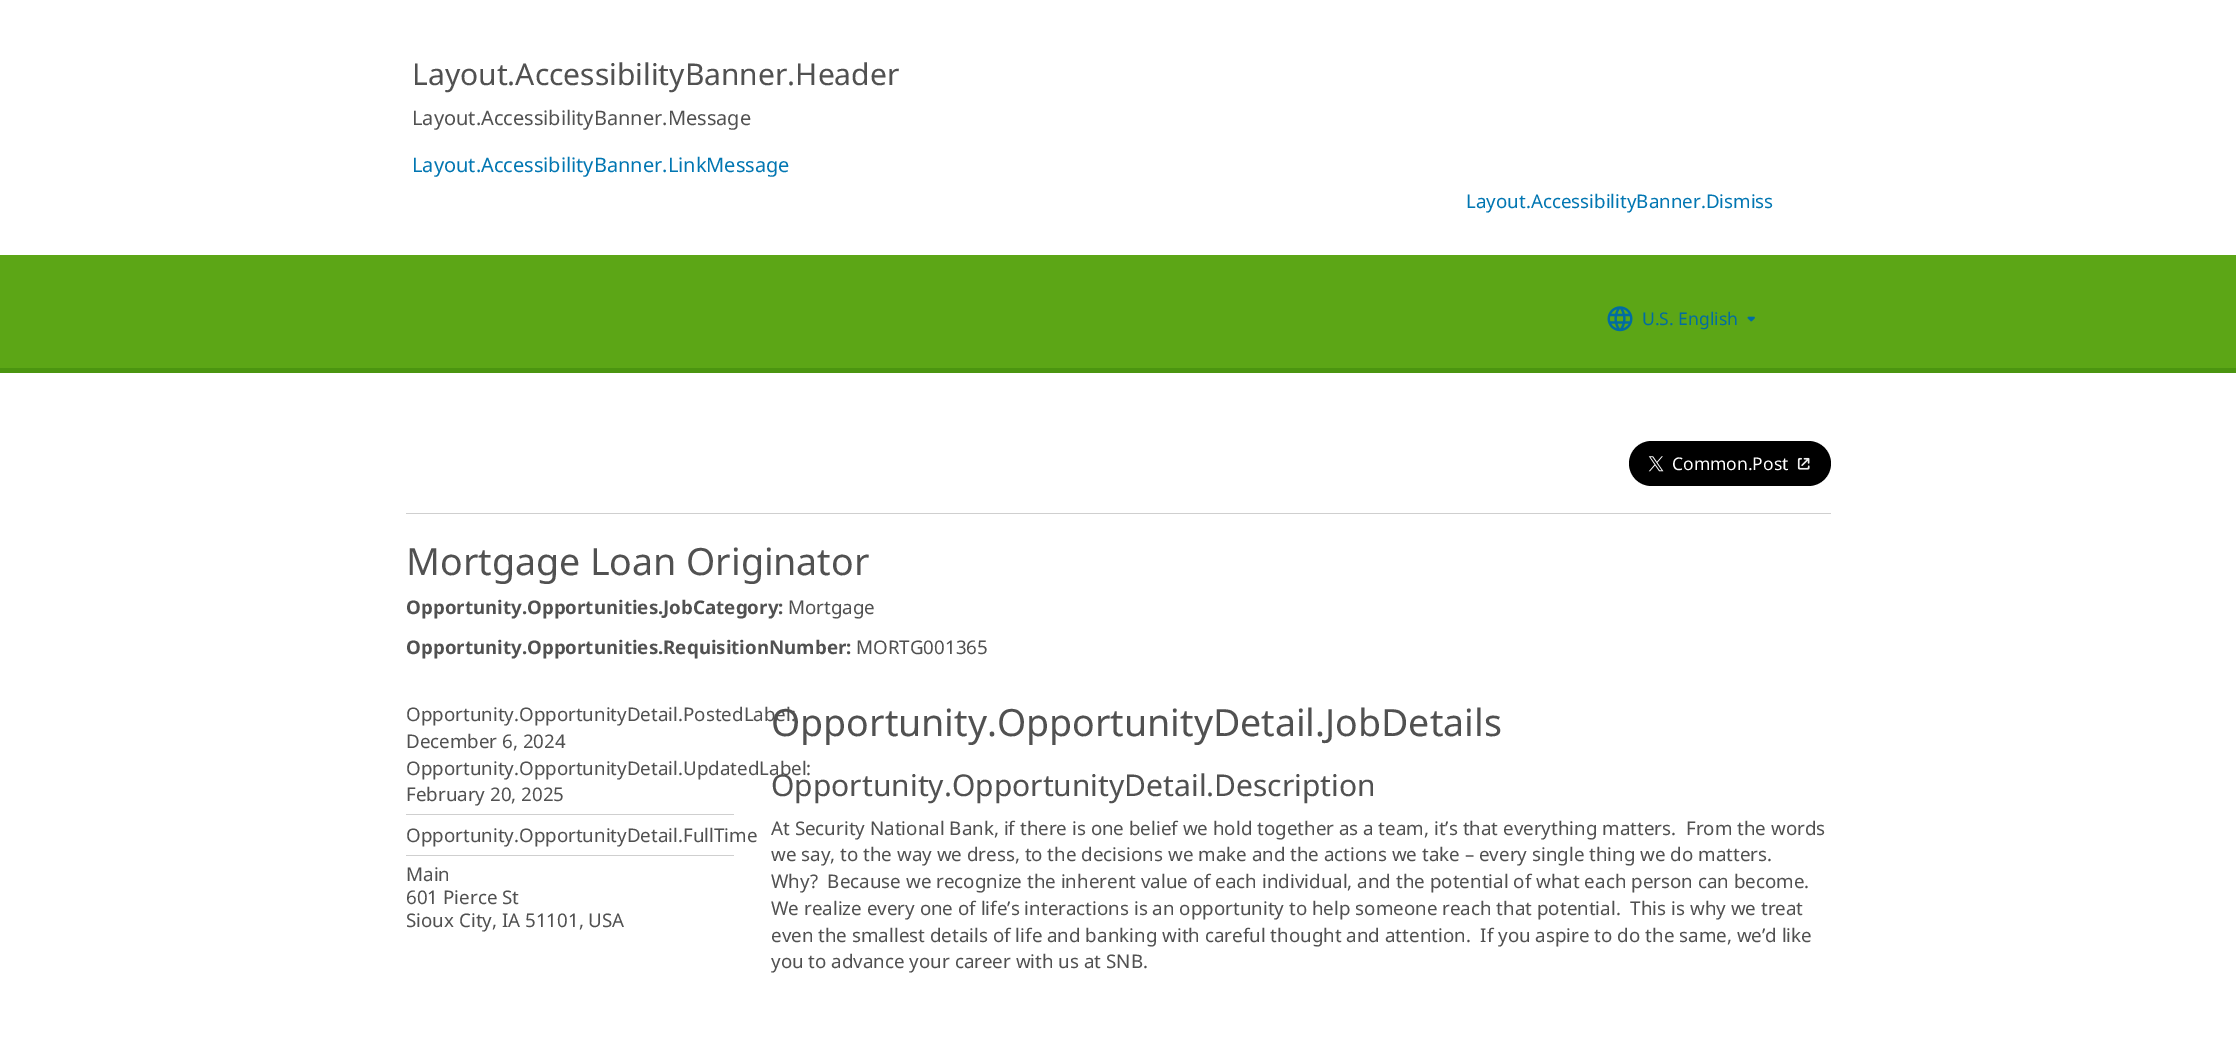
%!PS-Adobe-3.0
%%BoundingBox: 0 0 2236 1053
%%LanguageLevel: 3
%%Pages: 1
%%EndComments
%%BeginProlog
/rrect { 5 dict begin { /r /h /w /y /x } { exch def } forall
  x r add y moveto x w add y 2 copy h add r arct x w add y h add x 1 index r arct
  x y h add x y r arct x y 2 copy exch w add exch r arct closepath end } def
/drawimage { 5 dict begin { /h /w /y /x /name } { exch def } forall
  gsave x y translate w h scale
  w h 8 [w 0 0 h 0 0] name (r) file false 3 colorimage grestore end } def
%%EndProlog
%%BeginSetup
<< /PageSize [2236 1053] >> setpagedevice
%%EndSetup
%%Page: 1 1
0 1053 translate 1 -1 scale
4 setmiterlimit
1 setgray
0 0 2236 1053 rectfill
0.361 0.651 0.086 setrgbcolor
0 255 2236 113 rectfill
0.294 0.584 0.063 setrgbcolor
0 368 2236 5 rectfill
(images/1.raw) 1607 306 26 26 drawimage
(images/2.raw) 1747 316 8 6 drawimage
0 setgray
1629 441 202 45 22.5 rrect fill
(images/3.raw) 1648 456 16 16 drawimage
(images/4.raw) 1797 457 13 13 drawimage
0.812 setgray
406 513 1425 1 rectfill
406 814 328 1 rectfill
406 855 328 1 rectfill
/NotoSans-Regular [30 0 0 -30 0 0] selectfont
0.318 setgray
412 85 moveto (Layout.AccessibilityBanner.Header) show
/NotoSans-Regular [20 0 0 -20 0 0] selectfont
412 125 moveto (Layout.AccessibilityBanner.Message) show
0.004 0.463 0.698 setrgbcolor
412 172 moveto (Layout.AccessibilityBanner.LinkMessage) show
/NotoSans-Regular [18.75 0 0 -18.75 0 0] selectfont
1466 208 moveto (Layout.AccessibilityBanner.Dismiss) show
/NotoSans-Regular [17.5 0 0 -17.5 0 0] selectfont
0.004 0.424 0.635 setrgbcolor
1642 325 moveto (U.S. English) show
1 setgray
1672 470 moveto (Common.Post) show
/NotoSans-Regular [37.5 0 0 -37.5 0 0] selectfont
0.318 setgray
406 575 moveto (Mortgage Loan Originator) show
/NotoSans-Bold [18.75 0 0 -18.75 0 0] selectfont
406 614 moveto (Opportunity.Opportunities.JobCategory:) show
/NotoSans-Regular [18.75 0 0 -18.75 0 0] selectfont
788 614 moveto (Mortgage) show
/NotoSans-Bold [18.75 0 0 -18.75 0 0] selectfont
406 654 moveto (Opportunity.Opportunities.RequisitionNumber:) show
/NotoSans-Regular [18.75 0 0 -18.75 0 0] selectfont
856 654 moveto (MORTG001365) show
406 721 moveto (Opportunity.OpportunityDetail.PostedLabel:) show
406 748 moveto (December 6, 2024) show
406 775 moveto (Opportunity.OpportunityDetail.UpdatedLabel:) show
406 801 moveto (February 20, 2025) show
406 842 moveto (Opportunity.OpportunityDetail.FullTime) show
406 881 moveto (Main) show
406 904 moveto (601 Pierce St) show
406 927 moveto (Sioux City, IA 51101, USA) show
/NotoSans-Regular [37.5 0 0 -37.5 0 0] selectfont
771 736 moveto (Opportunity.OpportunityDetail.JobDetails) show
/NotoSans-Regular [30 0 0 -30 0 0] selectfont
771 796 moveto (Opportunity.OpportunityDetail.Description) show
/NotoSans-Regular [18.75 0 0 -18.75 0 0] selectfont
771 835 moveto (At Security National Bank, if there is one belief we hold together as a team, it’s that everything matters.  From the words) show
771 861 moveto (we say, to the way we dress, to the decisions we make and the actions we take – every single thing we do matters.) show
771 888 moveto (Why?  Because we recognize the inherent value of each individual, and the potential of what each person can become.) show
771 915 moveto (We realize every one of life’s interactions is an opportunity to help someone reach that potential.  This is why we treat) show
771 942 moveto (even the smallest details of life and banking with careful thought and attention.  If you aspire to do the same, we’d like) show
771 968 moveto (you to advance your career with us at SNB.) show
showpage
%%EOF
